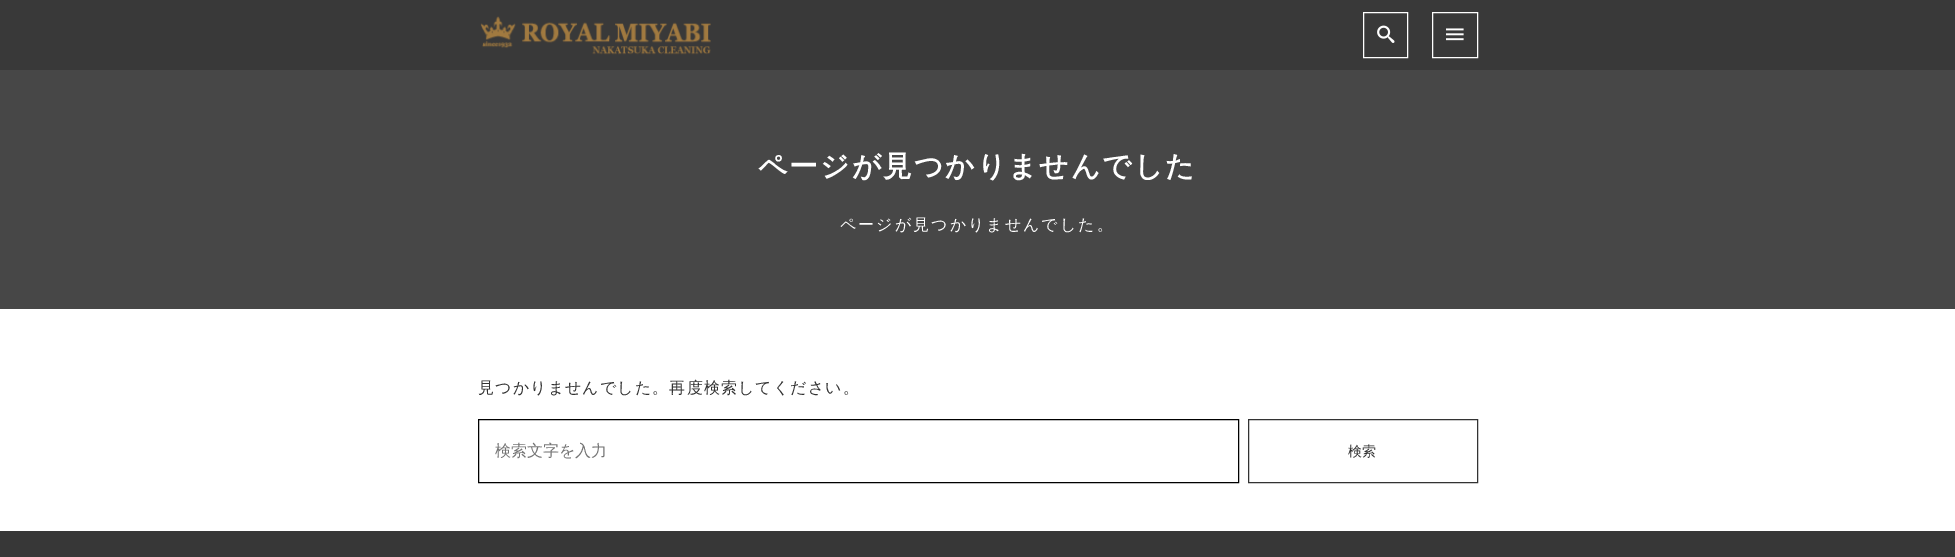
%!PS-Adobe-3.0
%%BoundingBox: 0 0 1955 557
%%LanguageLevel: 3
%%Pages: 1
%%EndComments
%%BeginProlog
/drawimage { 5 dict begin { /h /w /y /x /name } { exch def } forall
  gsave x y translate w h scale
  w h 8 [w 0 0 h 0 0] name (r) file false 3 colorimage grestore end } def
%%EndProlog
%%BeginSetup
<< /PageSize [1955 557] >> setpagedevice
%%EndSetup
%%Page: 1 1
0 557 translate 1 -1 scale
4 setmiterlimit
1 setgray
0 0 1955 557 rectfill
0.224 setgray
0 0 1955 70 rectfill
(images/1.raw) 480 16 231 39 drawimage
1 setgray
1363.5 12.5 44 45 rectstroke
(images/2.raw) 1377 25 18 18 drawimage
1432.5 12.5 45 45 rectstroke
(images/3.raw) 1446 28 18 13 drawimage
0.278 setgray
0 70 1955 239 rectfill
0 setgray
478.5 419.5 760 63 rectstroke
0.2 setgray
1248.5 419.5 229 63 rectstroke
0.216 setgray
0 531 1955 26 rectfill
/WenQuanYiZenHei-Bold [28.75 0 0 -28.75 0 0] selectfont
1 setgray
758 176 moveto 2 0 (ページが見つかりませんでした) ashow
/WenQuanYiZenHei-Medium [16 0 0 -16 0 0] selectfont
840 230 moveto 2 0 (ページが見つかりませんでした。) ashow
0.2 setgray
478 393 moveto 1.1 0 (見つかりませんでした。再度検索してください。) ashow
0.459 setgray
495 456 moveto (検索文字を入力) show
/WenQuanYiZenHei-Medium [14 0 0 -14 0 0] selectfont
0.2 setgray
1348 456 moveto (検索) show
showpage
%%EOF
